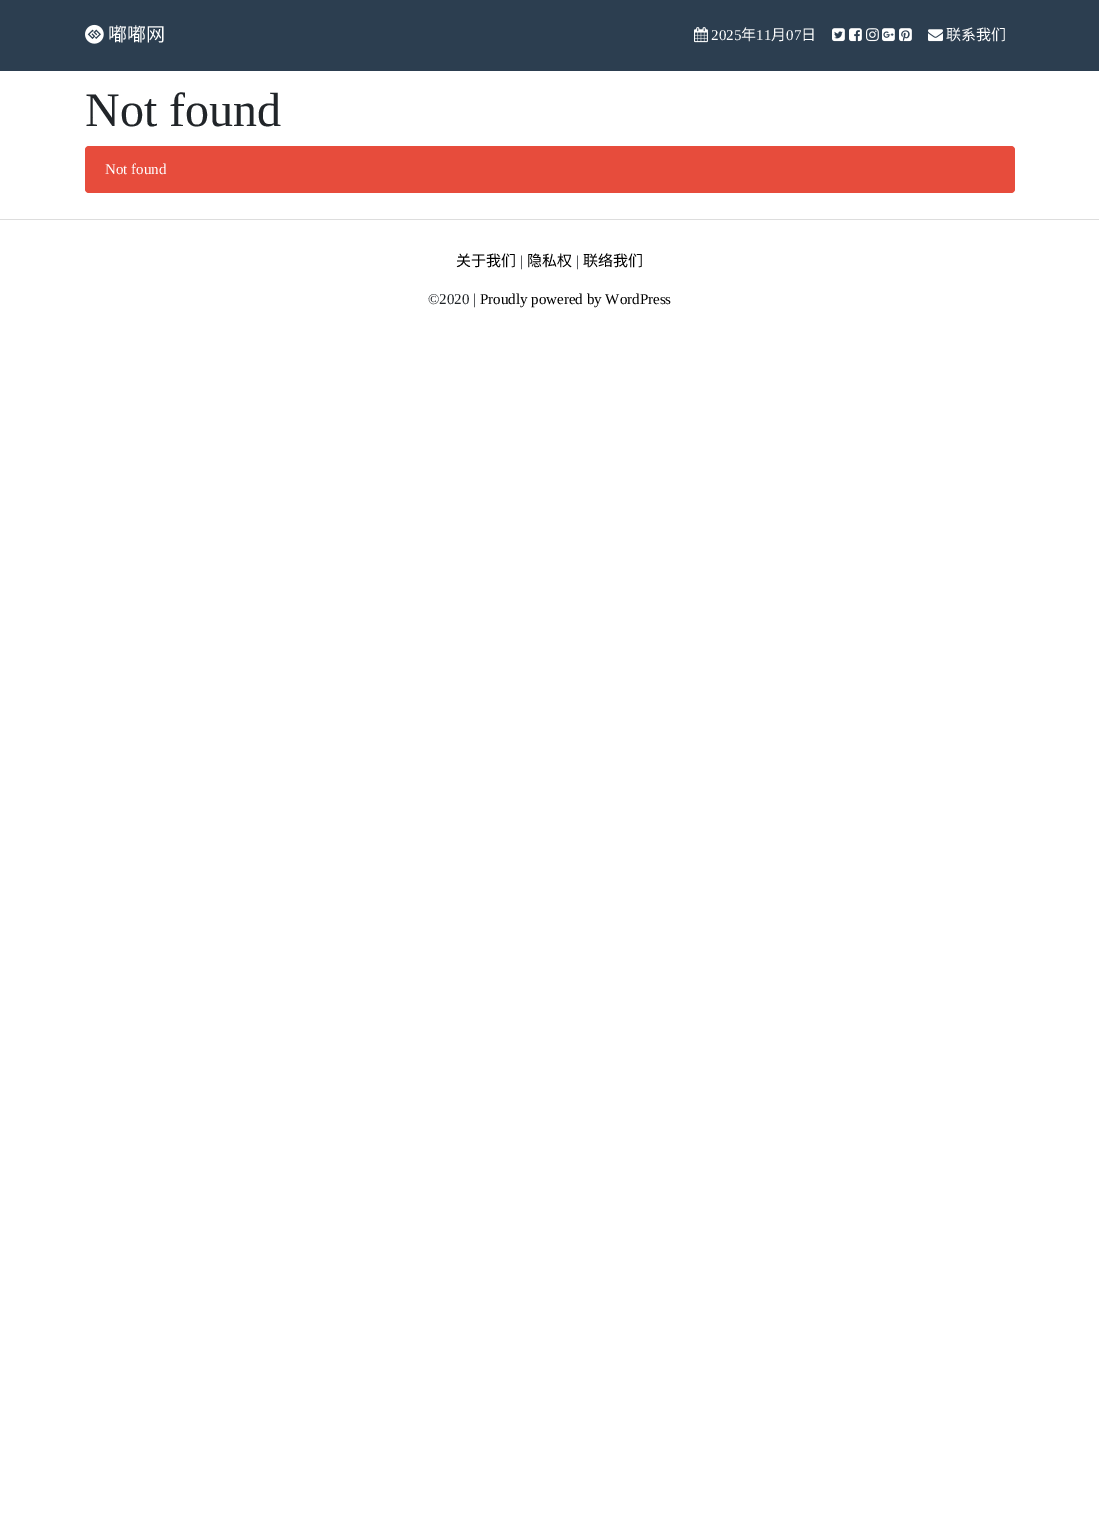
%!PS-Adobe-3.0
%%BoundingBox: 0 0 1099 1531
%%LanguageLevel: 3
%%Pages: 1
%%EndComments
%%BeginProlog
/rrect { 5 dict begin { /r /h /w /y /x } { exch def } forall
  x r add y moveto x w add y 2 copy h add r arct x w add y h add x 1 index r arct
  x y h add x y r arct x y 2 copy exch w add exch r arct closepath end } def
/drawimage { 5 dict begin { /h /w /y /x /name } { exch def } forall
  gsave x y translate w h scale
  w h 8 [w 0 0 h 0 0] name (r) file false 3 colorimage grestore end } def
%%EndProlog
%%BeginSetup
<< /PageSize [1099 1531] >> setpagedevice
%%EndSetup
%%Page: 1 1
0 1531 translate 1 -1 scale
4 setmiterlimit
1 setgray
0 0 1099 1531 rectfill
0.173 0.243 0.314 setrgbcolor
0 0 1099 71 rectfill
(images/1.raw) 85 24 19 20 drawimage
(images/2.raw) 694 27 14 16 drawimage
(images/3.raw) 832 28 13 14 drawimage
(images/4.raw) 849 28 13 14 drawimage
(images/5.raw) 866 28 13 14 drawimage
(images/6.raw) 882 28 13 14 drawimage
(images/7.raw) 899 28 13 14 drawimage
(images/8.raw) 928 29 15 13 drawimage
0.906 0.298 0.235 setrgbcolor
85 146 930 47 4 rrect fill
0.867 setgray
0 219 1099 1 rectfill
/NotoSansCJKTC-Regular [19 0 0 -19 0 0] selectfont
1 setgray
108 41 moveto (嘟嘟网) show
/LiberationSerif-Regular [15 0 0 -15 0 0] selectfont
711 40 moveto (2025) show
/NotoSansCJKTC-Regular [15 0 0 -15 0 0] selectfont
741 40 moveto (年) show
/LiberationSerif-Regular [15 0 0 -15 0 0] selectfont
756 40 moveto (11) show
/NotoSansCJKTC-Regular [15 0 0 -15 0 0] selectfont
771 40 moveto (月) show
/LiberationSerif-Regular [15 0 0 -15 0 0] selectfont
786 40 moveto (07) show
/NotoSansCJKTC-Regular [15 0 0 -15 0 0] selectfont
801 40 moveto (日) show
946 40 moveto (联系我们) show
/LiberationSerif-Regular [48 0 0 -48 0 0] selectfont
0.129 0.145 0.161 setrgbcolor
85 126 moveto (Not found) show
/LiberationSerif-Regular [15 0 0 -15 0 0] selectfont
1 setgray
105 174 moveto (Not found) show
/NotoSansCJKTC-Regular [15 0 0 -15 0 0] selectfont
0 setgray
456 266 moveto (关于我们) show
/LiberationSerif-Regular [15 0 0 -15 0 0] selectfont
0.129 0.145 0.161 setrgbcolor
520 266 moveto (|) show
/NotoSansCJKTC-Regular [15 0 0 -15 0 0] selectfont
0 setgray
527 266 moveto (隐私权) show
/LiberationSerif-Regular [15 0 0 -15 0 0] selectfont
0.129 0.145 0.161 setrgbcolor
576 266 moveto (|) show
/NotoSansCJKTC-Regular [15 0 0 -15 0 0] selectfont
0 setgray
583 266 moveto (联络我们) show
/LiberationSerif-Regular [15 0 0 -15 0 0] selectfont
0.129 0.145 0.161 setrgbcolor
428 304 moveto (©2020 |) show
0 setgray
480 304 moveto (Proudly powered by WordPress) show
showpage
%%EOF
